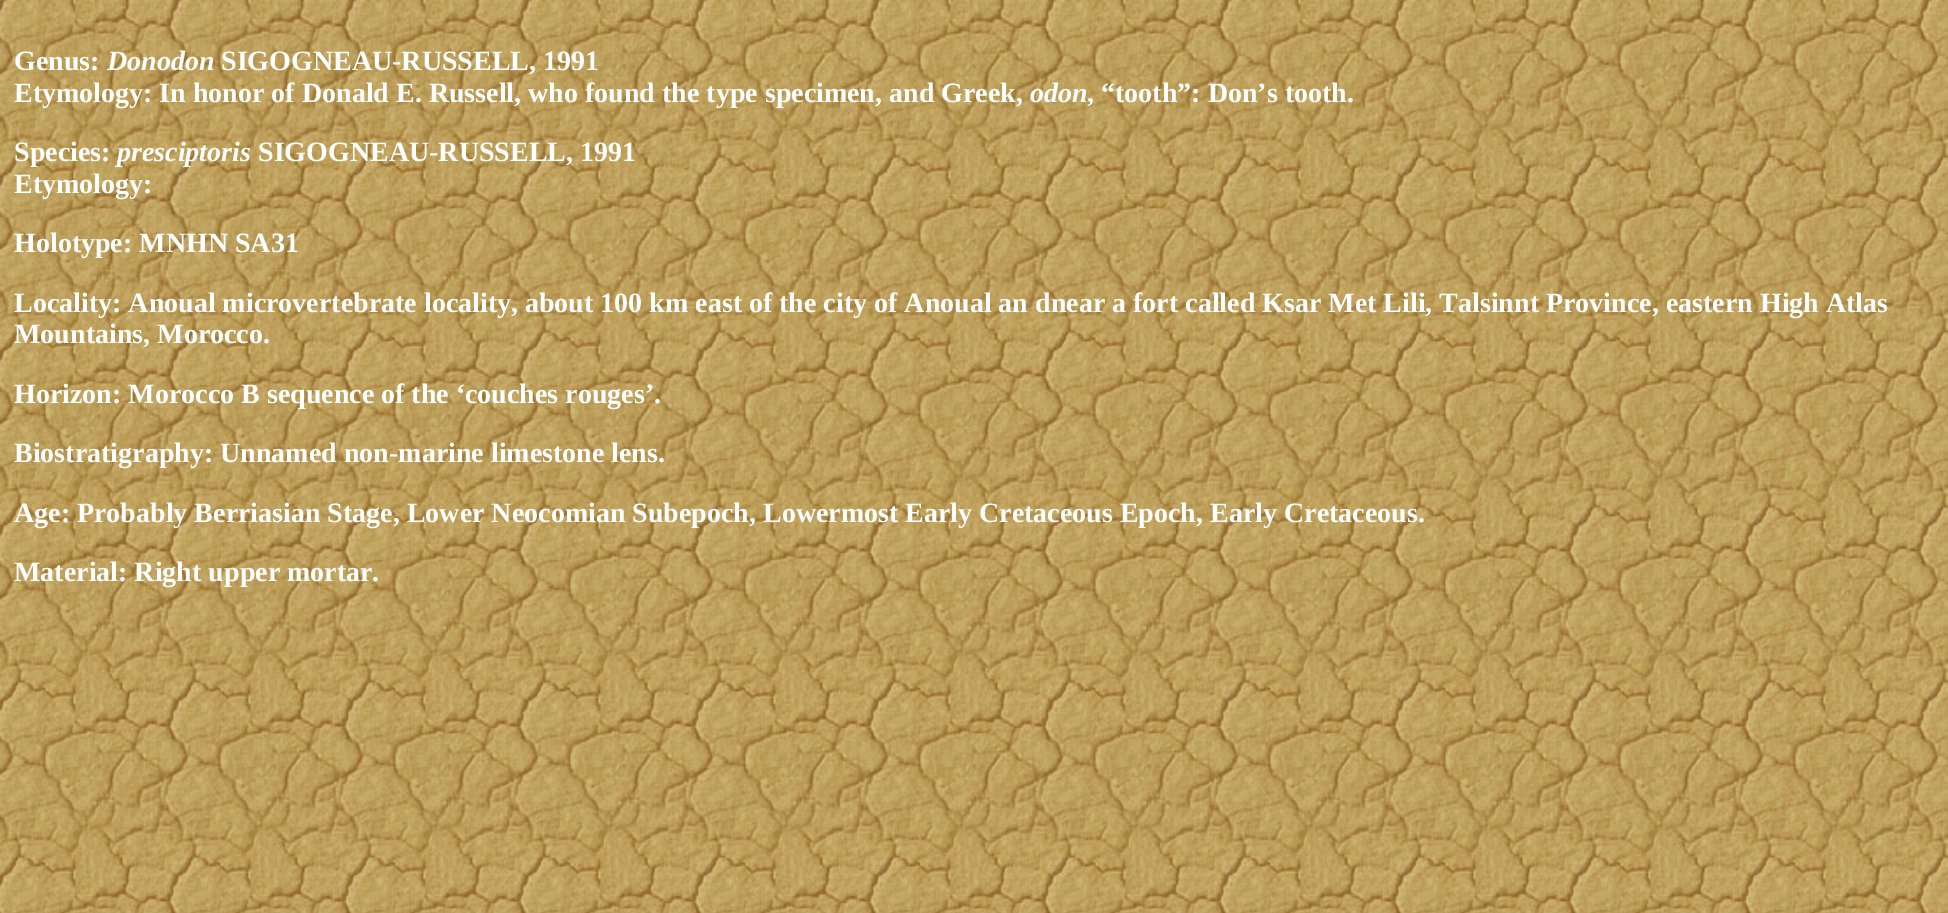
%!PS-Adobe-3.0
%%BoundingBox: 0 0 1948 913
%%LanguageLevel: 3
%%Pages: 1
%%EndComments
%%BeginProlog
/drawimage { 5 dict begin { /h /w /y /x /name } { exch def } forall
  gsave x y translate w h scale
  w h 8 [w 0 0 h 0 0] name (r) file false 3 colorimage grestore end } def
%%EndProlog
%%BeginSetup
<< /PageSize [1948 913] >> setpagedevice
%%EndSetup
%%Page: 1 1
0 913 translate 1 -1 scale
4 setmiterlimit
1 setgray
0 0 1948 913 rectfill
(images/1.raw) 0 0 1948 913 drawimage
/LiberationSerif-Bold [28 0 0 -28 0 0] selectfont
14 70 moveto (Genus:) show
/LiberationSerif-BoldItalic [28 0 0 -28 0 0] selectfont
107 70 moveto (Donodon) show
/LiberationSerif-Bold [28 0 0 -28 0 0] selectfont
221 70 moveto (SIGOGNEAU-RUSSELL, 1991) show
14 102 moveto (Etymology: In honor of Donald E. Russell, who found the type specimen, and Greek,) show
/LiberationSerif-BoldItalic [28 0 0 -28 0 0] selectfont
1030 102 moveto (odon) show
/LiberationSerif-Bold [28 0 0 -28 0 0] selectfont
1087 102 moveto (, “tooth”: Don’s tooth.) show
14 161 moveto (Species:) show
/LiberationSerif-BoldItalic [28 0 0 -28 0 0] selectfont
117 161 moveto (presciptoris) show
/LiberationSerif-Bold [28 0 0 -28 0 0] selectfont
258 161 moveto (SIGOGNEAU-RUSSELL, 1991) show
14 193 moveto (Etymology:) show
14 252 moveto (Holotype: MNHN SA31) show
14 312 moveto (Locality: Anoual microvertebrate locality, about 100 km east of the city of Anoual an dnear a fort called Ksar Met Lili, Talsinnt Province, eastern High Atlas) show
14 343 moveto (Mountains, Morocco.) show
14 403 moveto (Horizon: Morocco B sequence of the ‘couches rouges’.) show
14 462 moveto (Biostratigraphy: Unnamed non-marine limestone lens.) show
14 522 moveto (Age: Probably Berriasian Stage, Lower Neocomian Subepoch, Lowermost Early Cretaceous Epoch, Early Cretaceous.) show
14 581 moveto (Material: Right upper mortar.) show
showpage
%%EOF
